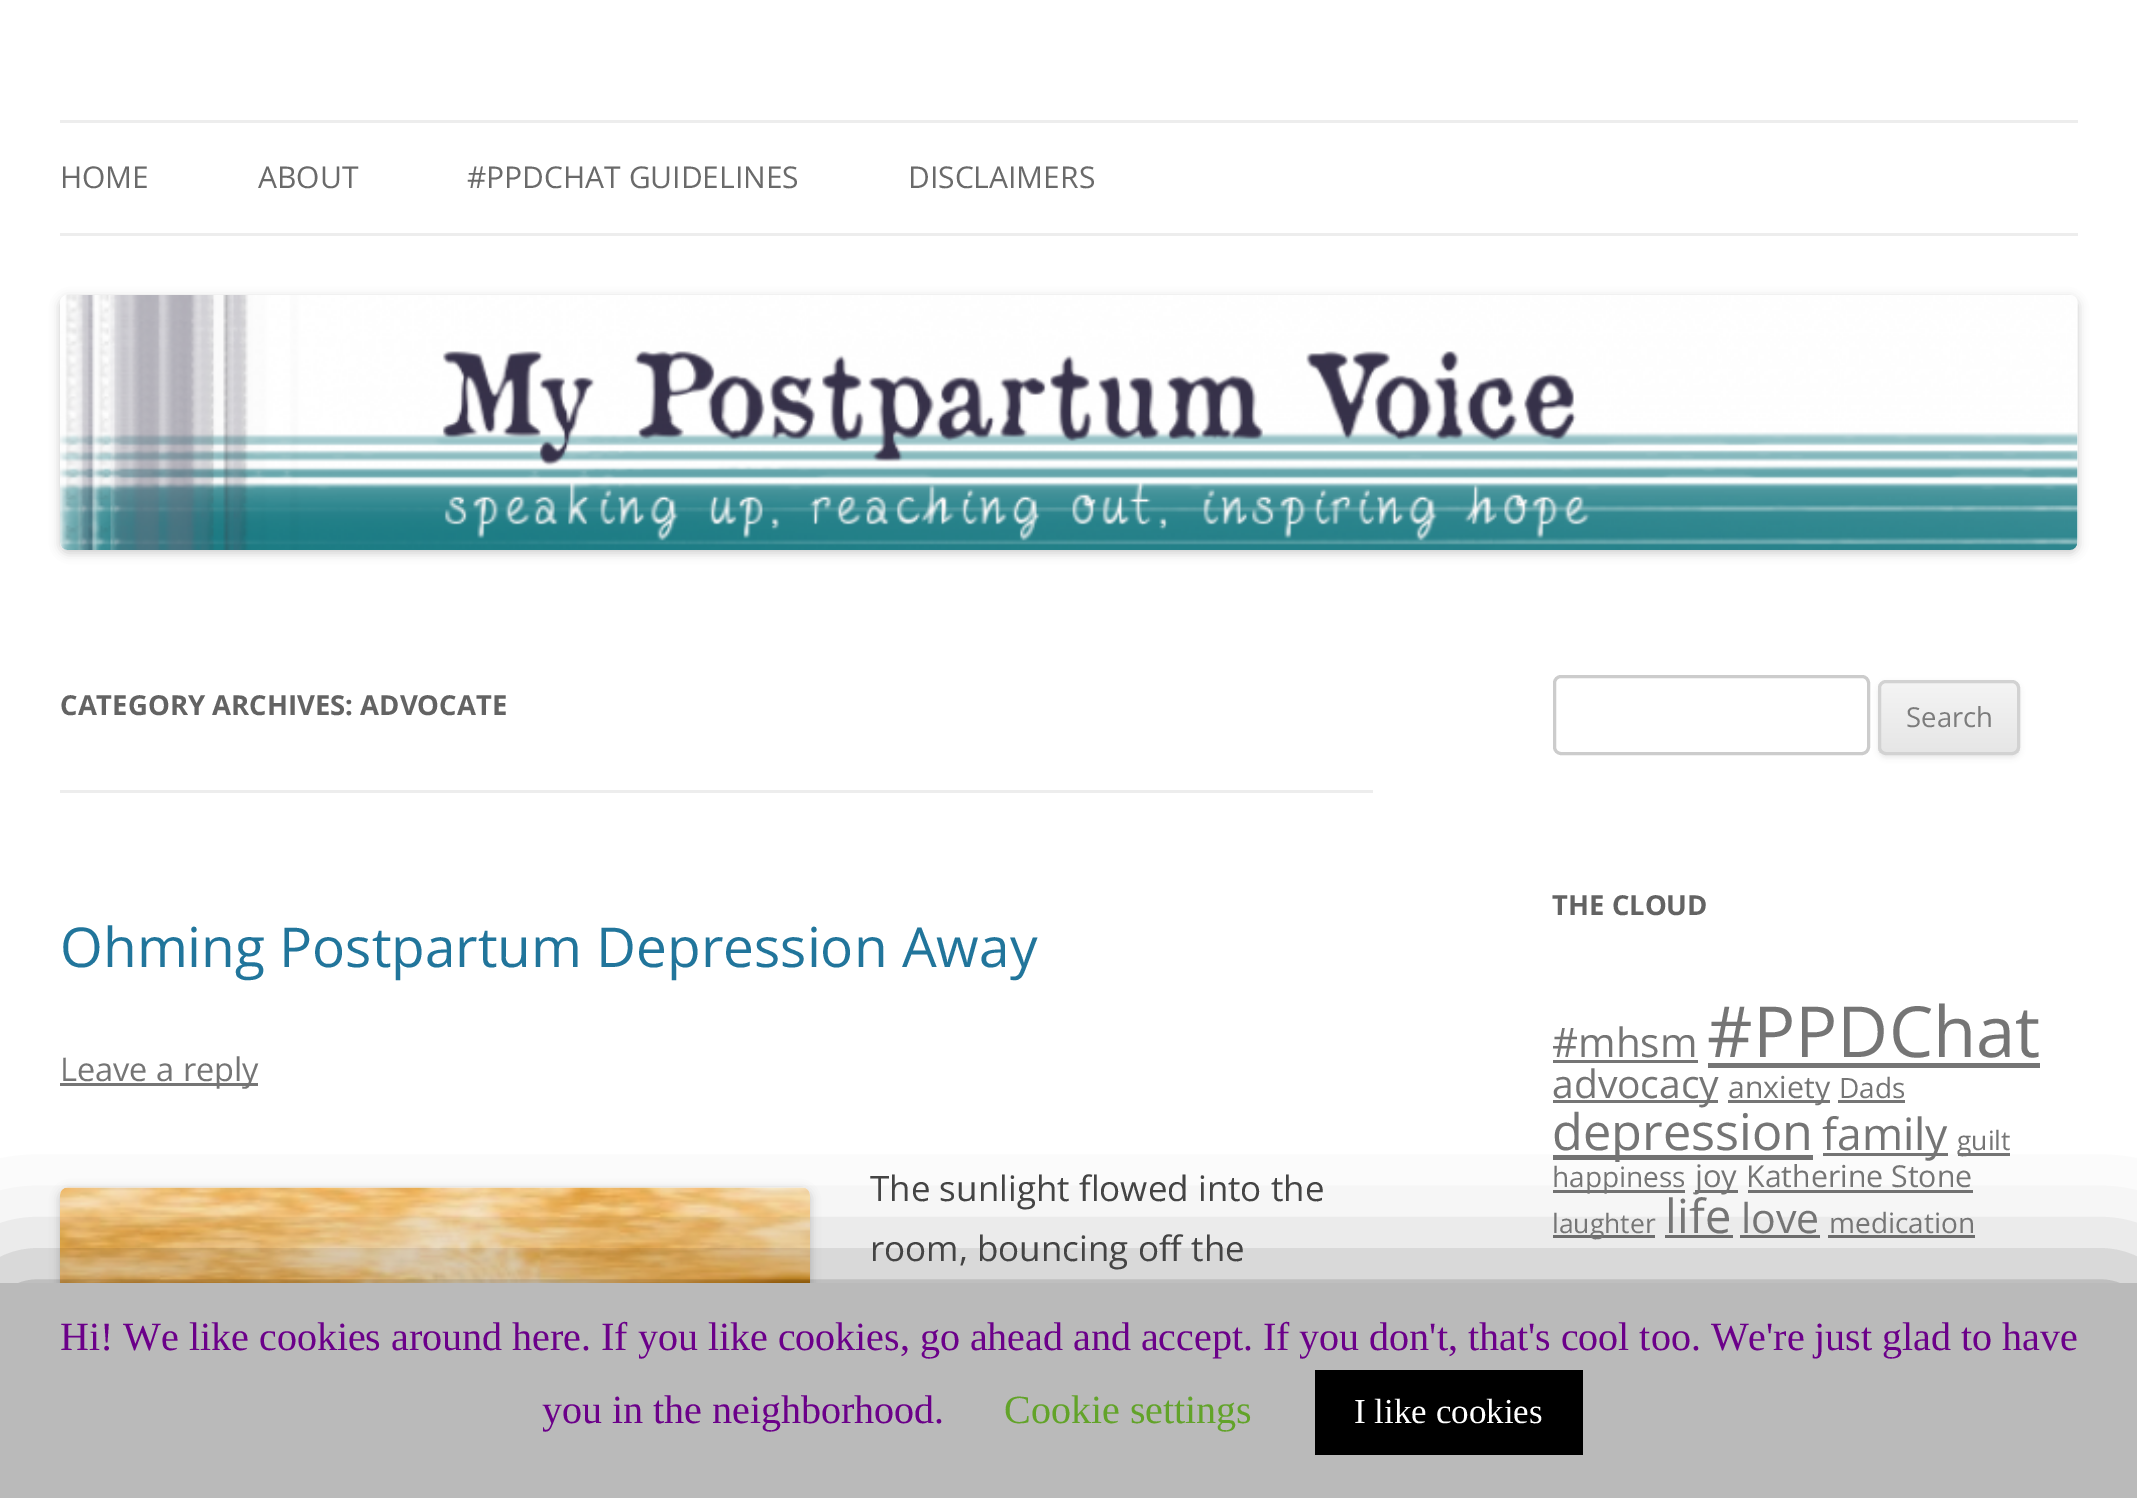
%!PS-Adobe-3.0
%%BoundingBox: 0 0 2137 1498
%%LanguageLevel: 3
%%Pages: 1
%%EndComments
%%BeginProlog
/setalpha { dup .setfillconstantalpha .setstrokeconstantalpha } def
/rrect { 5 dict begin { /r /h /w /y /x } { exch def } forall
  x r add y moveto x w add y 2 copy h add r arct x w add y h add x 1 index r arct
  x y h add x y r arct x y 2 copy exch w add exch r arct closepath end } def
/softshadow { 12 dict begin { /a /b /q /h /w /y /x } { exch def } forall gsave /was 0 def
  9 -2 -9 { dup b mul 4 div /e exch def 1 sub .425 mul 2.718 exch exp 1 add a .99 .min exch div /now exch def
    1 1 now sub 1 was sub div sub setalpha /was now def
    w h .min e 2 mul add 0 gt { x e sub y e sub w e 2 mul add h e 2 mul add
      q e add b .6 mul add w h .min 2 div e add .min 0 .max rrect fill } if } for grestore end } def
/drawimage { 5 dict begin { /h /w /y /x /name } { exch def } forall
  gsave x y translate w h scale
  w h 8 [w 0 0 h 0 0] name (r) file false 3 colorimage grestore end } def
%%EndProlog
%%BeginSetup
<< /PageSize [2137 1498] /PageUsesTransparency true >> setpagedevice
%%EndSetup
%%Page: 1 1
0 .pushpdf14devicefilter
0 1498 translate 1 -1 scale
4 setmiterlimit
1 setgray
0 0 2137 1498 rectfill
0.929 setgray
60 120 2018 3 rectfill
60 233 2018 3 rectfill
0 setgray
60 298 2018 255 8 5 0.2 softshadow
(images/1.raw) 60 295 2018 255 drawimage
0.929 setgray
60 790 1313 3 rectfill
0.459 setgray
60 1083 198 3 rectfill
0 setgray
60 1190 750 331 8 5 0.2 softshadow
(images/2.raw) 60 1187 750 96 drawimage
0.8 setgray
3 setlinewidth
1554.5 676.5 314 77 6.5 rrect stroke
0.251 setgray
1878 683 142 75 8 2.5 0.1 softshadow
gsave
1878 680 142 75 8 rrect clip newpath
gsave newpath 1878 683 moveto 2020 683 lineto 2020 753 lineto 1878 753 lineto closepath clip newpath
<< /ShadingType 2 /ColorSpace /DeviceRGB /Coords [1949 683 1949 753] /Extend [true true] /Function << /FunctionType 2 /Domain [0 1] /C0 [0.957 0.957 0.957] /C1 [0.902 0.902 0.902] /N 1 >> >> shfill grestore
grestore
0.824 setgray
1879.5 681.5 139 72 6.5 rrect stroke
0.459 setgray
1553 1060 145 3 rectfill
1708 1063 332 5 rectfill
1553 1100 165 3 rectfill
1728 1100 102 3 rectfill
1838 1100 67 3 rectfill
1553 1155 260 5 rectfill
1823 1153 125 3 rectfill
1958 1153 52 3 rectfill
1553 1190 132 3 rectfill
1695 1190 43 3 rectfill
1748 1190 225 3 rectfill
1553 1235 102 3 rectfill
1665 1235 68 3 rectfill
1740 1235 80 3 rectfill
1828 1235 147 3 rectfill
0 setgray
0 1295 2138 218 0 62.5 0.5 softshadow
0.729 setgray
0 1283 2137 215 rectfill
0 setgray
1315 1370 268 85 rectfill
/OpenSans-Regular [30 0 0 -30 0 0] selectfont
0.416 setgray
60 188 moveto (HOME) show
258 188 moveto (ABOUT) show
467 188 moveto (#PPDCHAT GUIDELINES) show
908 188 moveto (DISCLAIMERS) show
/OpenSans-Bold [27.5 0 0 -27.5 0 0] selectfont
0.388 setgray
60 715 moveto (CATEGORY ARCHIVES: ADVOCATE) show
/OpenSans-Regular [55 0 0 -55 0 0] selectfont
0.129 0.459 0.608 setrgbcolor
60 967 moveto (Ohming Postpartum Depression Away) show
/OpenSans-Regular [32.5 0 0 -32.5 0 0] selectfont
0.459 setgray
60 1081 moveto (Leave a reply) show
/OpenSans-Regular [35 0 0 -35 0 0] selectfont
0.267 setgray
870 1201 moveto (The sunlight flowed into the) show
870 1261 moveto (room, bouncing off the) show
/OpenSans-Regular [27.5 0 0 -27.5 0 0] selectfont
0.486 setgray
1906 727 moveto (Search) show
/OpenSans-Bold [27.5 0 0 -27.5 0 0] selectfont
0.388 setgray
1552 915 moveto (THE CLOUD) show
/OpenSans-Regular [40.5 0 0 -40.5 0 0] selectfont
0.459 setgray
1552 1057 moveto (#mhsm) show
/OpenSans-Regular [70.5 0 0 -70.5 0 0] selectfont
1707 1057 moveto (#PPDChat) show
/OpenSans-Regular [39 0 0 -39 0 0] selectfont
1552 1098 moveto (advocacy) show
/OpenSans-Regular [30.25 0 0 -30.25 0 0] selectfont
1728 1098 moveto (anxiety) show
/OpenSans-Regular [28 0 0 -28 0 0] selectfont
1839 1098 moveto (Dads) show
/OpenSans-Regular [50.5 0 0 -50.5 0 0] selectfont
1552 1150 moveto (depression) show
/OpenSans-Regular [44.5 0 0 -44.5 0 0] selectfont
1822 1150 moveto (family) show
/OpenSans-Regular [26.5 0 0 -26.5 0 0] selectfont
1957 1150 moveto (guilt) show
/OpenSans-Regular [28 0 0 -28 0 0] selectfont
1552 1187 moveto (happiness) show
/OpenSans-Regular [31 0 0 -31 0 0] selectfont
1695 1187 moveto (joy) show
/OpenSans-Regular [30.25 0 0 -30.25 0 0] selectfont
1746 1187 moveto (Katherine Stone) show
/OpenSans-Regular [26.5 0 0 -26.5 0 0] selectfont
1552 1233 moveto (laughter) show
/OpenSans-Regular [47 0 0 -47 0 0] selectfont
1665 1233 moveto (life) show
/OpenSans-Regular [41 0 0 -41 0 0] selectfont
1741 1233 moveto (love) show
/OpenSans-Regular [28 0 0 -28 0 0] selectfont
1829 1233 moveto (medication) show
/LiberationSerif-Regular [40 0 0 -40 0 0] selectfont
0.42 0 0.537 setrgbcolor
60 1350 moveto (Hi! We like cookies around here. If you like cookies, go ahead and accept. If you don't, that's cool too. We're just glad to have) show
542 1423 moveto (you in the neighborhood.) show
0.384 0.639 0.161 setrgbcolor
1004 1423 moveto (Cookie settings) show
/LiberationSerif-Regular [35 0 0 -35 0 0] selectfont
1 setgray
1354 1423 moveto (I like cookies) show
.poppdf14devicefilter showpage
%%EOF
